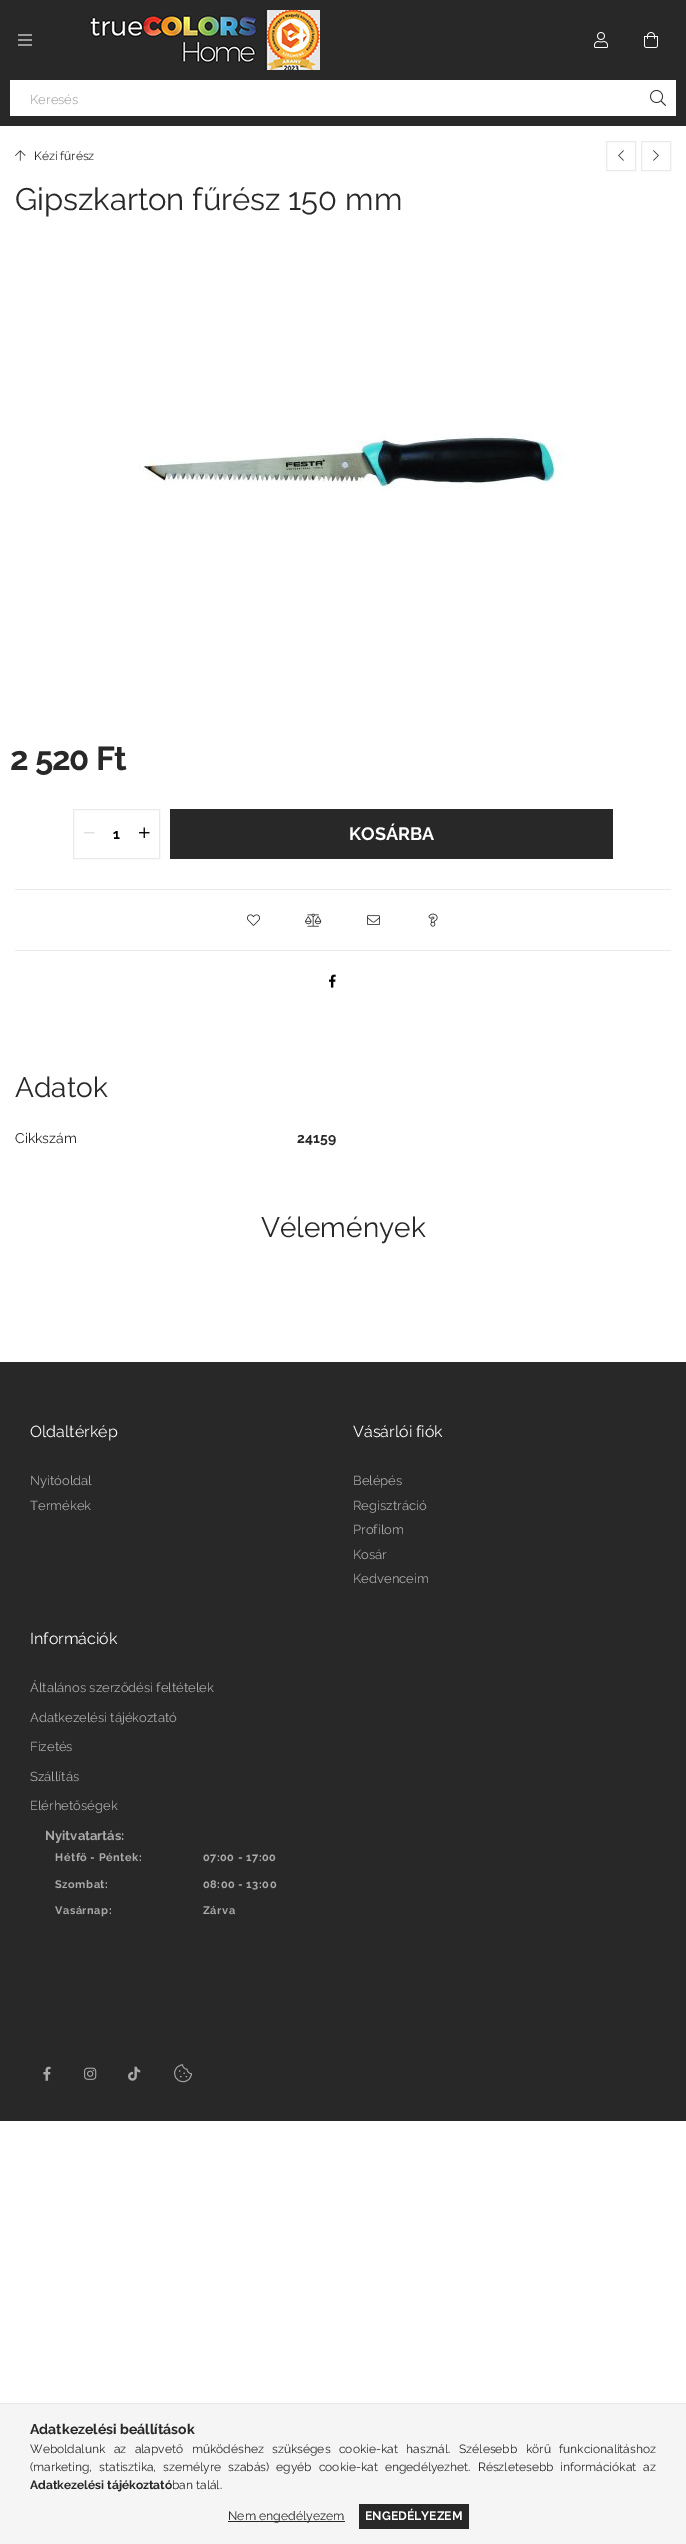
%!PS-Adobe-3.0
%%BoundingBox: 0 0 686 2544
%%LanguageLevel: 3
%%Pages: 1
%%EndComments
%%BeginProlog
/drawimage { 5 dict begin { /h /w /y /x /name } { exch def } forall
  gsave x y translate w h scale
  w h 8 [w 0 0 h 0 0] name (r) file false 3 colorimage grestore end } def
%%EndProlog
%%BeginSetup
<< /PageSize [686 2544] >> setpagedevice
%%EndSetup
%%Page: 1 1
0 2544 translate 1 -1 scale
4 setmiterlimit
1 setgray
0 0 686 2544 rectfill
0.157 setgray
0 0 686 126 rectfill
(images/1.raw) 18 34 14 12 drawimage
(images/2.raw) 89 10 231 60 drawimage
(images/3.raw) 594 32 14 16 drawimage
(images/4.raw) 644 32 14 16 drawimage
1 setgray
10 80 666 36 rectfill
(images/5.raw) 650 90 16 16 drawimage
(images/6.raw) 15 150 11 11 drawimage
0.918 setgray
606.5 141.5 29 29 rectstroke
(images/7.raw) 618 150 6 11 drawimage
641.5 141.5 29 29 rectstroke
(images/8.raw) 653 150 6 11 drawimage
(images/9.raw) 139 433 424 56 drawimage
73.5 809.5 86 49 rectstroke
(images/10.raw) 84 832 11 2 drawimage
(images/11.raw) 139 827 11 11 drawimage
0.157 setgray
170 809 443 50 rectfill
0.918 setgray
15 889 656 1 rectfill
(images/12.raw) 247 914 13 12 drawimage
(images/13.raw) 305 913 17 14 drawimage
(images/14.raw) 367 915 13 10 drawimage
(images/15.raw) 428 913 10 14 drawimage
15 950 656 1 rectfill
(images/16.raw) 329 974 7 14 drawimage
0.157 setgray
0 1362 686 759 rectfill
(images/17.raw) 43 2066 8 15 drawimage
(images/18.raw) 84 2067 13 13 drawimage
(images/19.raw) 128 2066 13 15 drawimage
(images/20.raw) 174 2064 18 19 drawimage
0.961 setgray
0 2404 686 140 rectfill
0.918 setgray
0 2403 686 1 rectfill
0.157 setgray
228 2521 117 1 rectfill
359 2504 110 25 rectfill
/Raleway-Regular [13 0 0 -13 0 0] selectfont
0.667 setgray
30 104 moveto (Keresés) show
/Raleway-Regular [12 0 0 -12 0 0] selectfont
0.157 setgray
34 160 moveto (Kézi fűrész) show
/Raleway-Regular [31 0 0 -31 0 0] selectfont
15 210 moveto (Gipszkarton fűrész 150 mm) show
/Raleway-Bold [33 0 0 -33 0 0] selectfont
10 770 moveto -1 0 (2 520 Ft) ashow
/Raleway-Bold [14 0 0 -14 0 0] selectfont
0 setgray
113 839 moveto (1) show
/Raleway-Bold [18 0 0 -18 0 0] selectfont
1 setgray
349 840 moveto (KOSÁRBA) show
/Raleway-Regular [28 0 0 -28 0 0] selectfont
0.157 setgray
15 1097 moveto (Adatok) show
/Raleway-Regular [14 0 0 -14 0 0] selectfont
15 1143 moveto (Cikkszám) show
/Raleway-Bold [14 0 0 -14 0 0] selectfont
297 1143 moveto (24159) show
/Raleway-Regular [28 0 0 -28 0 0] selectfont
261 1237 moveto (Vélemények) show
/Raleway-Regular [16 0 0 -16 0 0] selectfont
1 setgray
30 1437 moveto (Oldaltérkép) show
/Raleway-Regular [13 0 0 -13 0 0] selectfont
0.667 setgray
30 1485 moveto (Nyitóoldal) show
30 1510 moveto (Termékek) show
/Raleway-Regular [16 0 0 -16 0 0] selectfont
1 setgray
353 1437 moveto (Vásárlói fiók) show
/Raleway-Regular [13 0 0 -13 0 0] selectfont
0.667 setgray
353 1485 moveto (Belépés) show
353 1510 moveto (Regisztráció) show
353 1534 moveto (Profilom) show
353 1559 moveto (Kosár) show
353 1583 moveto (Kedvenceim) show
/Raleway-Regular [16 0 0 -16 0 0] selectfont
1 setgray
30 1644 moveto (Információk) show
/Raleway-Regular [13 0 0 -13 0 0] selectfont
0.667 setgray
30 1692 moveto (Általános szerződési feltételek) show
30 1722 moveto (Adatkezelési tájékoztató) show
30 1751 moveto (Fizetés) show
30 1781 moveto (Szállítás) show
30 1810 moveto (Elérhetőségek) show
/Raleway-Bold [13 0 0 -13 0 0] selectfont
45 1840 moveto (Nyitvatartás:) show
/Raleway-Bold [11 0 0 -11 0 0] selectfont
55 1861 moveto 0.5 0 (Hétfő - Péntek:) ashow
203 1861 moveto 0.5 0 (07:00 - 17:00) ashow
55 1888 moveto 0.5 0 (Szombat:) ashow
203 1888 moveto 0.5 0 (08:00 - 13:00) ashow
55 1914 moveto 0.5 0 (Vasárnap:) ashow
203 1914 moveto 0.5 0 (Zárva) ashow
/Raleway-Bold [14 0 0 -14 0 0] selectfont
0.157 setgray
30 2434 moveto (Adatkezelési beállítások) show
/Raleway-Regular [12 0 0 -12 0 0] selectfont
30 2453 moveto 5.5 0 32 (Weboldalunk az alapvető működéshez szükséges cookie-kat használ. Szélesebb körű funkcionalitáshoz) widthshow
30 2471 moveto 4 0 32 (\(marketing, statisztika, személyre szabás\) egyéb cookie-kat engedélyezhet. Részletesebb információkat az) widthshow
/Raleway-Bold [12 0 0 -12 0 0] selectfont
30 2489 moveto (Adatkezelési tájékoztató) show
/Raleway-Regular [12 0 0 -12 0 0] selectfont
172 2489 moveto (ban talál.) show
/Raleway-Regular [12.25 0 0 -12.25 0 0] selectfont
228 2520 moveto (Nem engedélyezem) show
/Raleway-Bold [12.25 0 0 -12.25 0 0] selectfont
1 setgray
365 2520 moveto (ENGEDÉLYEZEM) show
showpage
%%EOF
